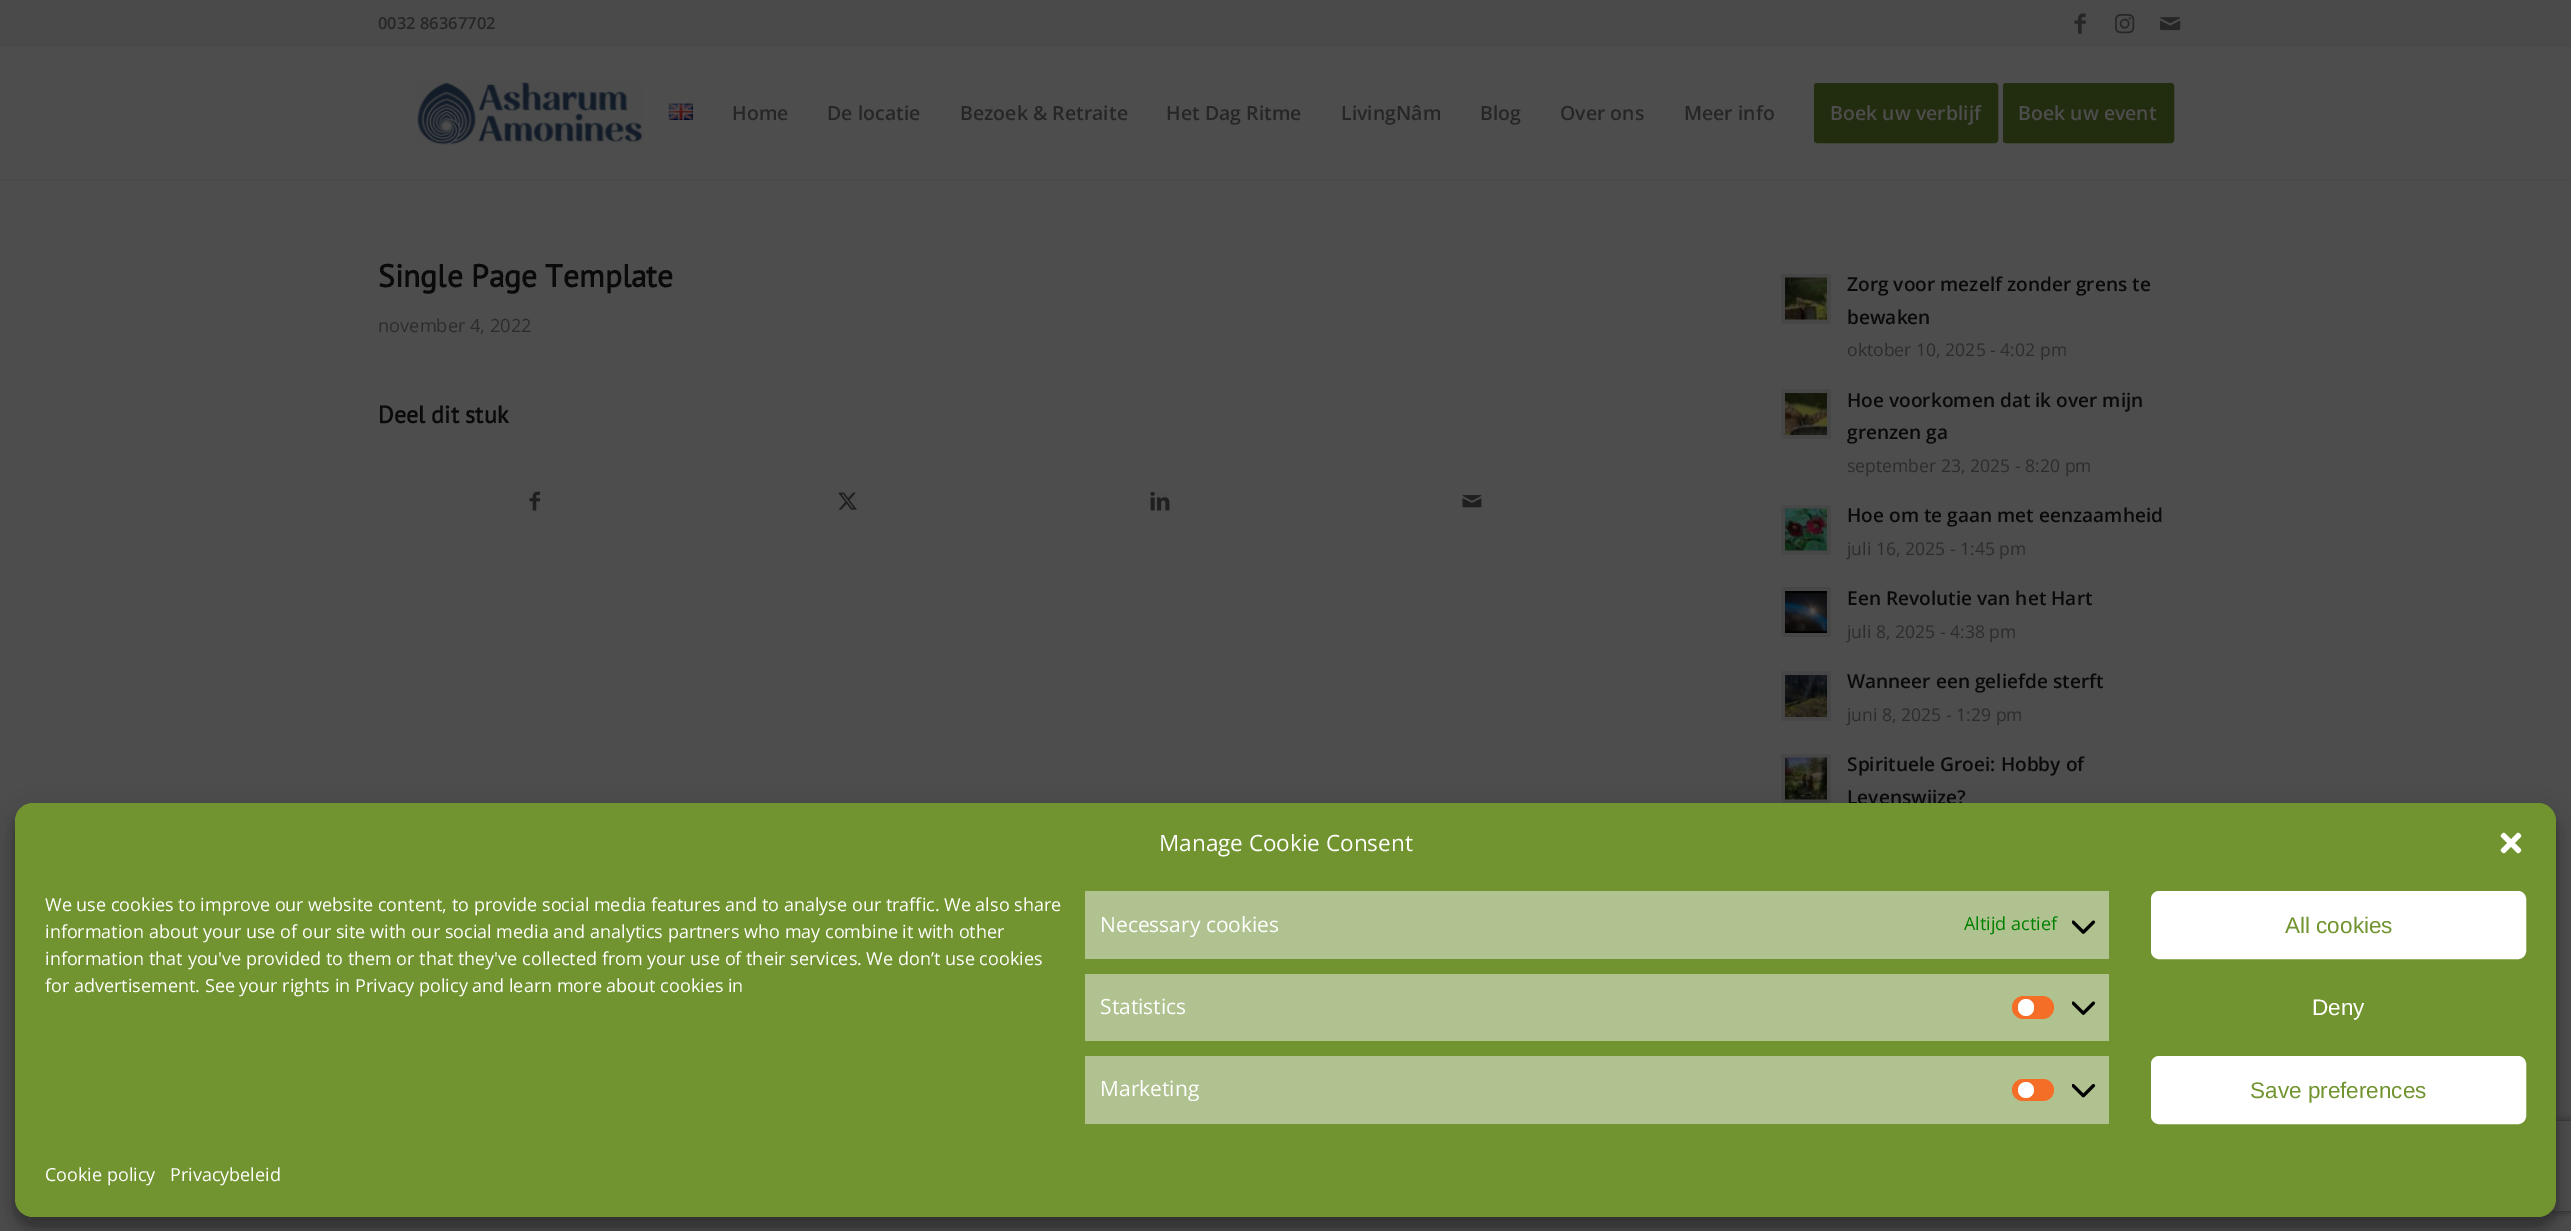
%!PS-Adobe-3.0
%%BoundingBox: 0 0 2571 1231
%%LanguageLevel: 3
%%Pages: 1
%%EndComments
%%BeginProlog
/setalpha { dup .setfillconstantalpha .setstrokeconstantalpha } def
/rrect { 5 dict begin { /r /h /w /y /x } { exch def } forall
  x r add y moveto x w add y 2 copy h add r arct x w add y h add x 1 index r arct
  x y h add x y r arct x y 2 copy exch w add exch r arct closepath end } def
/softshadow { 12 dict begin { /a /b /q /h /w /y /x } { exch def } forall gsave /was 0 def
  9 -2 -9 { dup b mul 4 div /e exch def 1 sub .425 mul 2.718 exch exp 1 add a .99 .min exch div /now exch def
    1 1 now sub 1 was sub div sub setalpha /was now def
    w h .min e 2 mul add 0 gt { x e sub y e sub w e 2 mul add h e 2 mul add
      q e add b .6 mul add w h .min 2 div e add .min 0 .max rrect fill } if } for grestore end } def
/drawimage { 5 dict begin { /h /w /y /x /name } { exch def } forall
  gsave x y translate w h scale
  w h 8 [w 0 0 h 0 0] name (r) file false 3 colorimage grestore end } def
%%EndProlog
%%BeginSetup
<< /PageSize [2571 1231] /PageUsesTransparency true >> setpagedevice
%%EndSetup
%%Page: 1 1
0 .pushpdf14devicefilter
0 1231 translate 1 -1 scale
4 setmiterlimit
0.302 setgray
0 0 2571 1231 rectfill
0.29 setgray
0 0 2571 47 rectfill
(images/1.raw) 2074 13 12 21 drawimage
(images/2.raw) 2115 14 20 20 drawimage
(images/3.raw) 2160 17 21 14 drawimage
0 179 2571 2 rectfill
(images/4.raw) 417 82 226 63 drawimage
(images/5.raw) 668 103 25 17 drawimage
0.133 0.173 0.055 setrgbcolor
1815.5 84.5 181 57 1.5 rrect gsave fill grestore
3 setlinewidth
stroke
2004.5 84.5 168 57 1.5 rrect gsave fill grestore
stroke
(images/6.raw) 529 491 11 20 drawimage
(images/7.raw) 838 492 19 18 drawimage
(images/8.raw) 1150 491 20 20 drawimage
(images/9.raw) 1462 495 20 13 drawimage
0.278 setgray
1781 274 50 50 rectfill
(images/10.raw) 1785 277 42 43 drawimage
1781 389 50 50 rectfill
(images/11.raw) 1785 393 42 42 drawimage
1781 505 50 50 rectfill
(images/12.raw) 1785 508 42 43 drawimage
1781 587 50 50 rectfill
(images/13.raw) 1785 591 42 42 drawimage
1781 671 50 50 rectfill
(images/14.raw) 1785 675 42 42 drawimage
1781 754 50 49 rectfill
(images/15.raw) 1785 757 42 43 drawimage
0 setgray
15 812 2541 414 18 4.5 0.23 softshadow
15 818 2541 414 18 15 0.19 softshadow
gsave
newpath 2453 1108 moveto 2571 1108 lineto 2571 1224 lineto 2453 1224 lineto closepath 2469 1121 moveto 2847 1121 lineto 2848.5 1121 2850 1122.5 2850 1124 curveto 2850 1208 lineto 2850 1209.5 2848.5 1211 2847 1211 curveto 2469 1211 lineto 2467.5 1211 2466 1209.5 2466 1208 curveto 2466 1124 lineto 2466 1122.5 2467.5 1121 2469 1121 curveto closepath eoclip newpath
0.149 setgray
2466 1121 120 90 3 4 1 softshadow
grestore
/OpenSans-SemiBold [16.5 0 0 -16.5 0 0] selectfont
0.149 setgray
378 29 moveto (0032 86367702) show
/OpenSans-SemiBold [19.5 0 0 -19.5 0 0] selectfont
732 120 moveto (Home) show
827 120 moveto (De locatie) show
960 120 moveto (Bezoek & Retraite) show
1166 120 moveto (Het Dag Ritme) show
1341 120 moveto (LivingNâm) show
1480 120 moveto (Blog) show
1560 120 moveto (Over ons) show
1684 120 moveto (Meer info) show
0.302 setgray
1830 120 moveto (Boek uw verblijf) show
2018 120 moveto (Boek uw event) show
/PTSans-Bold [31.5 0 0 -31.5 0 0] selectfont
0.039 setgray
378 287 moveto (Single Page Template) show
/OpenSans-Regular [18.25 0 0 -18.25 0 0] selectfont
0.173 setgray
378 332 moveto (november 4, 2022) show
/PTSans-Bold [24 0 0 -24 0 0] selectfont
0.039 setgray
378 423 moveto (Deel dit stuk) show
/OpenSans-SemiBold [19.1 0 0 -19.1 0 0] selectfont
1847 291 moveto (Zorg voor mezelf zonder grens te) show
1847 324 moveto (bewaken) show
/OpenSans-Regular [17.6 0 0 -17.6 0 0] selectfont
0.173 setgray
1847 356 moveto (oktober 10, 2025 - 4:02 pm) show
/OpenSans-SemiBold [19.1 0 0 -19.1 0 0] selectfont
0.039 setgray
1847 407 moveto (Hoe voorkomen dat ik over mijn) show
1847 439 moveto (grenzen ga) show
/OpenSans-Regular [17.6 0 0 -17.6 0 0] selectfont
0.173 setgray
1847 472 moveto (september 23, 2025 - 8:20 pm) show
/OpenSans-SemiBold [19.1 0 0 -19.1 0 0] selectfont
0.039 setgray
1847 522 moveto (Hoe om te gaan met eenzaamheid) show
/OpenSans-Regular [17.6 0 0 -17.6 0 0] selectfont
0.173 setgray
1847 555 moveto (juli 16, 2025 - 1:45 pm) show
/OpenSans-SemiBold [19.1 0 0 -19.1 0 0] selectfont
0.039 setgray
1847 605 moveto (Een Revolutie van het Hart) show
/OpenSans-Regular [17.6 0 0 -17.6 0 0] selectfont
0.173 setgray
1847 638 moveto (juli 8, 2025 - 4:38 pm) show
/OpenSans-SemiBold [19.1 0 0 -19.1 0 0] selectfont
0.039 setgray
1847 688 moveto (Wanneer een geliefde sterft) show
/OpenSans-Regular [17.6 0 0 -17.6 0 0] selectfont
0.173 setgray
1847 721 moveto (juni 8, 2025 - 1:29 pm) show
/OpenSans-SemiBold [19.1 0 0 -19.1 0 0] selectfont
0.039 setgray
1847 771 moveto (Spirituele Groei: Hobby of) show
1847 804 moveto (Levenswijze?) show
0.443 0.58 0.188 setrgbcolor
15 803 2541 414 18 rrect fill
/OpenSans-Regular [22.5 0 0 -22.5 0 0] selectfont
1 setgray
1159 851 moveto (Manage Cookie Consent) show
(images/16.raw) 2500 832 22 22 drawimage
/OpenSans-Regular [18 0 0 -18 0 0] selectfont
45 911 moveto (We use cookies to improve our website content, to provide social media features and to analyse our traffic. We also share) show
45 938 moveto (information about your use of our site with our social media and analytics partners who may combine it with other) show
45 965 moveto (information that you've provided to them or that they've collected from your use of their services. We don’t use cookies) show
45 992 moveto (for advertisement. See your rights in Privacy policy and learn more about cookies in) show
0.69 0.761 0.565 setrgbcolor
1085 891 1024 68 rectfill
/OpenSans-Regular [21 0 0 -21 0 0] selectfont
1 setgray
1100 932 moveto (Necessary cookies) show
/OpenSans-Regular [18 0 0 -18 0 0] selectfont
0 0.502 0 setrgbcolor
1964 930 moveto (Altijd actief) show
(images/17.raw) 2072 920 24 14 drawimage
0.69 0.761 0.565 setrgbcolor
1085 974 1024 67 rectfill
/OpenSans-Regular [21 0 0 -21 0 0] selectfont
1 setgray
1100 1014 moveto (Statistics) show
0.961 0.431 0.157 setrgbcolor
2012 996 42 23 11.5 rrect fill
1 setgray
2018 999 16 17 8 rrect fill
(images/17.raw) 2072 1001 24 14 drawimage
0.69 0.761 0.565 setrgbcolor
1085 1056 1024 68 rectfill
1 setgray
1100 1096 moveto (Marketing) show
0.961 0.431 0.157 setrgbcolor
2012 1079 42 22 11 rrect fill
1 setgray
newpath 2026 1090 8 0 360 arc closepath fill
(images/18.raw) 2072 1084 24 14 drawimage
2152 892 373 66 7 rrect gsave fill grestore
2 setlinewidth
stroke
/LiberationSans-Regular [22.5 0 0 -22.5 0 0] selectfont
0.443 0.58 0.188 setrgbcolor
2285 933 moveto (All cookies) show
1 setgray
2312 1015 moveto (Deny) show
2152 1057 373 66 7 rrect gsave fill grestore
stroke
0.443 0.58 0.188 setrgbcolor
2250 1098 moveto (Save preferences) show
/OpenSans-Regular [18 0 0 -18 0 0] selectfont
1 setgray
45 1181 moveto (Cookie policy) show
170 1181 moveto (Privacybeleid) show
.poppdf14devicefilter showpage
%%EOF
